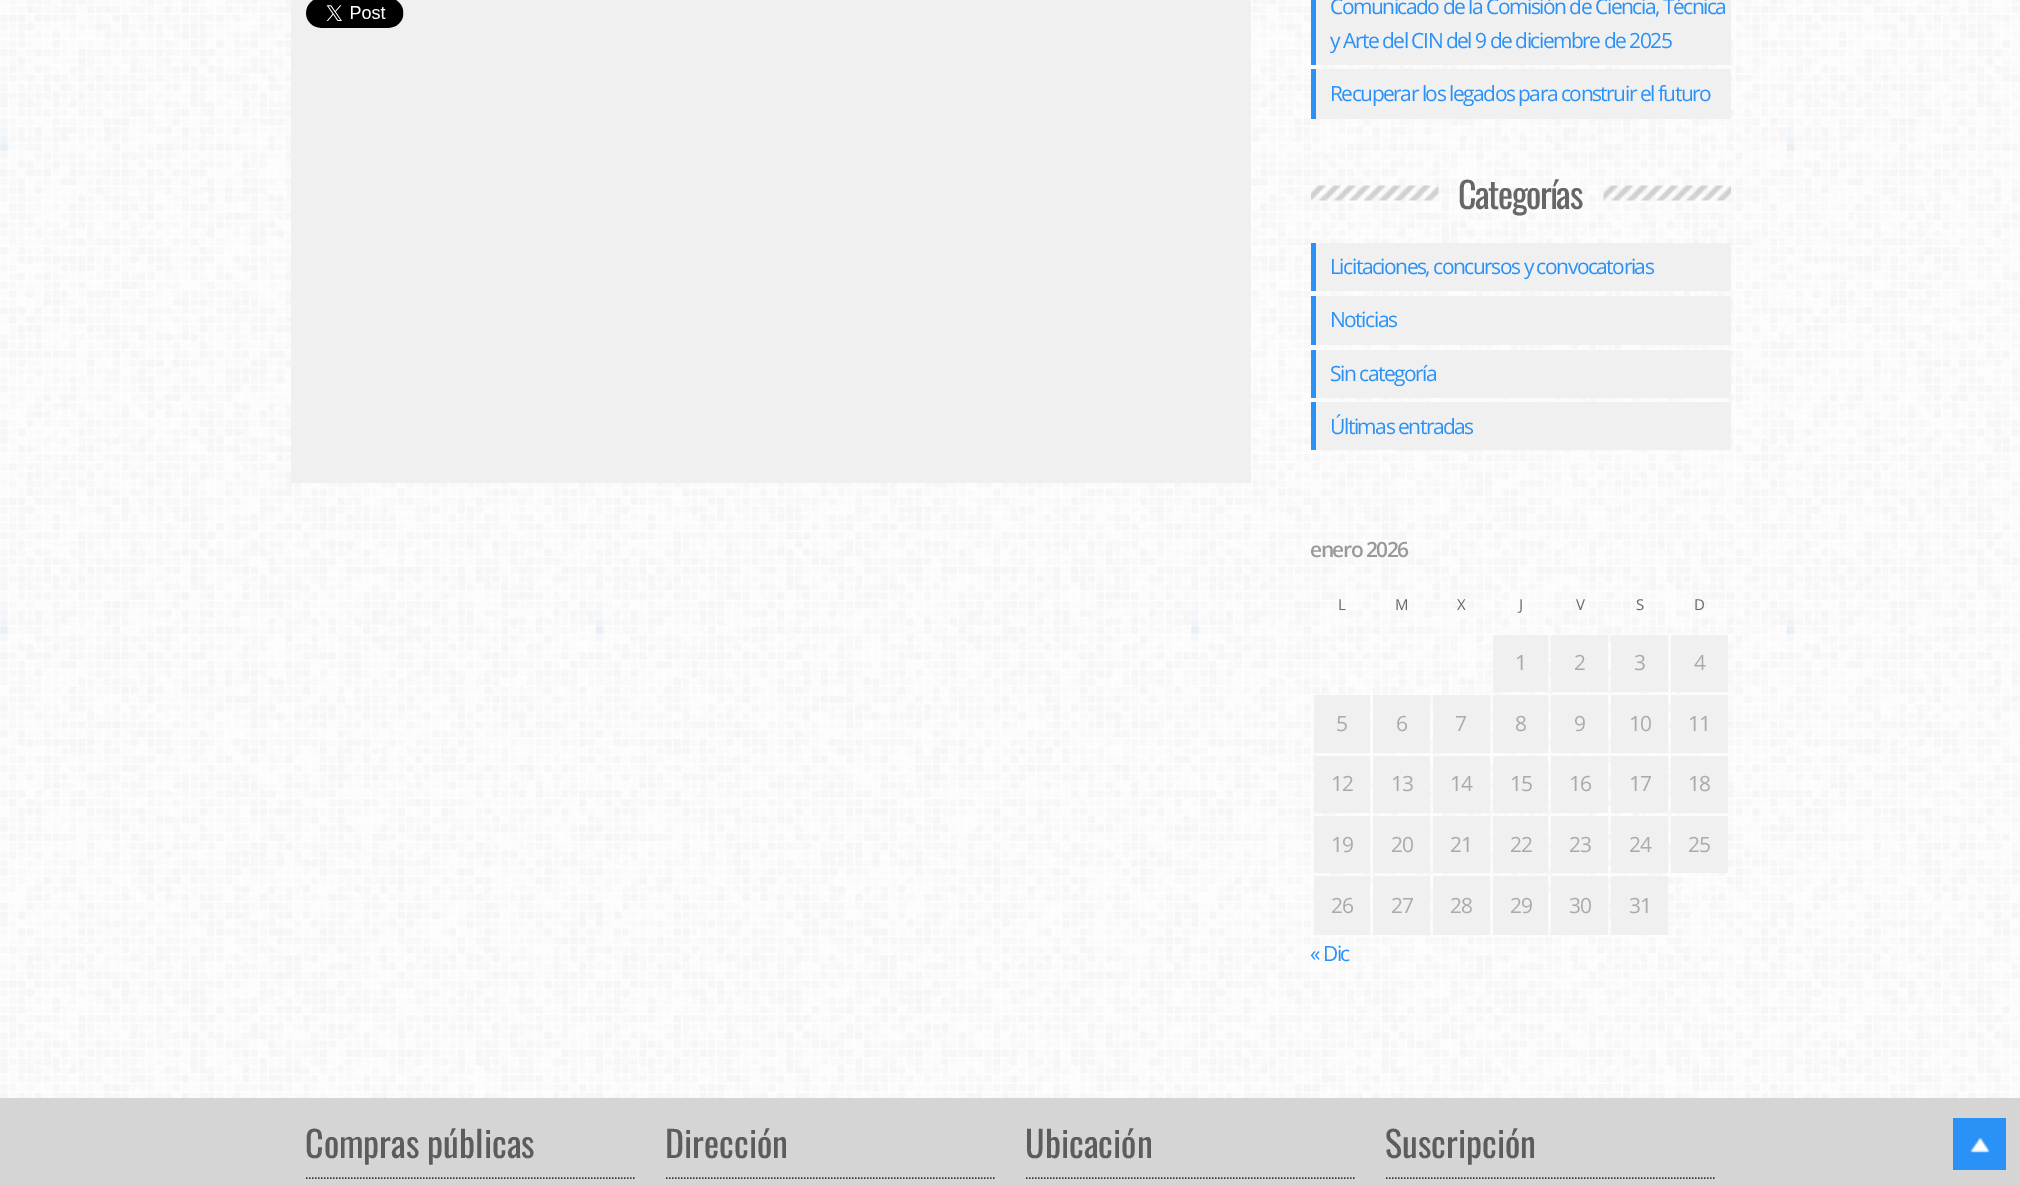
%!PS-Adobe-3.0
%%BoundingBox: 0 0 2020 1185
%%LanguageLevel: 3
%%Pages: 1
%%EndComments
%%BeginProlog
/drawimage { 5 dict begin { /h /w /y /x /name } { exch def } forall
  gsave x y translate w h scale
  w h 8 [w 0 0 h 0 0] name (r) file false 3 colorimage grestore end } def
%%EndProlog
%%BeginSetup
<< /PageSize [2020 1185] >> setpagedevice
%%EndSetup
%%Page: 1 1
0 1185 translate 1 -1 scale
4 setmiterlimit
1 setgray
0 0 2020 1185 rectfill
(images/1.raw) 0 0 2020 1098 drawimage
0.941 setgray
291 0 960 483 rectfill
(images/2.raw) 306 0 98 28 drawimage
1316 0 415 65 rectfill
0.165 0.569 0.969 setrgbcolor
1311 0 5 65 rectfill
0.941 setgray
1316 69 415 50 rectfill
0.165 0.569 0.969 setrgbcolor
1311 69 5 50 rectfill
(images/3.raw) 1311 185 128 16 drawimage
(images/4.raw) 1603 185 128 16 drawimage
0.941 setgray
1316 243 415 48 rectfill
0.165 0.569 0.969 setrgbcolor
1311 243 5 48 rectfill
0.941 setgray
1316 296 415 49 rectfill
0.165 0.569 0.969 setrgbcolor
1311 296 5 49 rectfill
0.941 setgray
1316 350 415 48 rectfill
0.165 0.569 0.969 setrgbcolor
1311 350 5 48 rectfill
0.941 setgray
1316 402 415 48 rectfill
0.165 0.569 0.969 setrgbcolor
1311 402 5 48 rectfill
0.941 setgray
1493 635 55 57 rectfill
1551 635 57 57 rectfill
1611 635 57 57 rectfill
1671 635 57 57 rectfill
1314 695 56 58 rectfill
1373 695 57 58 rectfill
1433 695 57 58 rectfill
1493 695 55 58 rectfill
1551 695 57 58 rectfill
1611 695 57 58 rectfill
1671 695 57 58 rectfill
1314 756 56 57 rectfill
1373 756 57 57 rectfill
1433 756 57 57 rectfill
1493 756 55 57 rectfill
1551 756 57 57 rectfill
1611 756 57 57 rectfill
1671 756 57 57 rectfill
1314 816 56 57 rectfill
1373 816 57 57 rectfill
1433 816 57 57 rectfill
1493 816 55 57 rectfill
1551 816 57 57 rectfill
1611 816 57 57 rectfill
1671 816 57 57 rectfill
1314 876 56 59 rectfill
1373 876 57 59 rectfill
1433 876 57 59 rectfill
1493 876 55 59 rectfill
1551 876 57 59 rectfill
1611 876 57 59 rectfill
0.835 setgray
0 1098 2020 87 rectfill
0.22 setgray
1.5 setlinewidth
[1.5 1.5] 0 setdash
newpath 306 1178 moveto 636 1178 lineto stroke
newpath 666 1178 moveto 996 1178 lineto stroke
newpath 1026 1178 moveto 1356 1178 lineto stroke
newpath 1386 1178 moveto 1716 1178 lineto stroke
0.165 0.569 0.969 setrgbcolor
1953 1118 53 52 rectfill
(images/5.raw) 1970 1138 20 15 drawimage
/OpenSans-Regular [21 0 0 -21 0 0] selectfont
1330 14 moveto -1.5 0 (Comunicado de la Comisión de Ciencia, Técnica) ashow
1330 48 moveto -1.5 0 (y Arte del CIN del 9 de diciembre de 2025) ashow
1330 101 moveto -1.5 0 (Recuperar los legados para construir el futuro) ashow
/Oswald-Regular [36 0 0 -36 0 0] selectfont
0.4 setgray
1458 209 moveto -1.5 0 (Categorías) ashow
/OpenSans-Regular [21 0 0 -21 0 0] selectfont
0.165 0.569 0.969 setrgbcolor
1330 274 moveto -1.5 0 (Licitaciones, concursos y convocatorias) ashow
1330 327 moveto -1.5 0 (Noticias) ashow
1330 381 moveto -1.5 0 (Sin categoría) ashow
1330 434 moveto -1.5 0 (Últimas entradas) ashow
/OpenSans-SemiBold [21 0 0 -21 0 0] selectfont
0.6 setgray
1310 557 moveto -1.5 0 (enero 2026) ashow
/OpenSans-Regular [15 0 0 -15 0 0] selectfont
0.4 setgray
1338 610 moveto -1.5 0 (L) ashow
1395 610 moveto -1.5 0 (M) ashow
1457 610 moveto -1.5 0 (X) ashow
1519 610 moveto -1.5 0 (J) ashow
1576 610 moveto -1.5 0 (V) ashow
1636 610 moveto -1.5 0 (S) ashow
1694 610 moveto -1.5 0 (D) ashow
/OpenSans-Regular [21 0 0 -21 0 0] selectfont
0.667 setgray
1515 670 moveto -1.5 0 (1) ashow
1574 670 moveto -1.5 0 (2) ashow
1634 670 moveto -1.5 0 (3) ashow
1694 670 moveto -1.5 0 (4) ashow
1336 731 moveto -1.5 0 (5) ashow
1396 731 moveto -1.5 0 (6) ashow
1455 731 moveto -1.5 0 (7) ashow
1515 731 moveto -1.5 0 (8) ashow
1574 731 moveto -1.5 0 (9) ashow
1629 731 moveto -1.5 0 (10) ashow
1688 731 moveto -1.5 0 (11) ashow
1331 791 moveto -1.5 0 (12) ashow
1391 791 moveto -1.5 0 (13) ashow
1450 791 moveto -1.5 0 (14) ashow
1510 791 moveto -1.5 0 (15) ashow
1569 791 moveto -1.5 0 (16) ashow
1629 791 moveto -1.5 0 (17) ashow
1688 791 moveto -1.5 0 (18) ashow
1331 852 moveto -1.5 0 (19) ashow
1391 852 moveto -1.5 0 (20) ashow
1450 852 moveto -1.5 0 (21) ashow
1510 852 moveto -1.5 0 (22) ashow
1569 852 moveto -1.5 0 (23) ashow
1629 852 moveto -1.5 0 (24) ashow
1688 852 moveto -1.5 0 (25) ashow
1331 913 moveto -1.5 0 (26) ashow
1391 913 moveto -1.5 0 (27) ashow
1450 913 moveto -1.5 0 (28) ashow
1510 913 moveto -1.5 0 (29) ashow
1569 913 moveto -1.5 0 (30) ashow
1629 913 moveto -1.5 0 (31) ashow
0.165 0.569 0.969 setrgbcolor
1310 961 moveto -1.5 0 (« Dic) ashow
/Oswald-Regular [36 0 0 -36 0 0] selectfont
0.361 setgray
305 1158 moveto (Compras públicas) show
665 1158 moveto (Dirección) show
1025 1158 moveto (Ubicación) show
1385 1158 moveto (Suscripción) show
showpage
%%EOF
